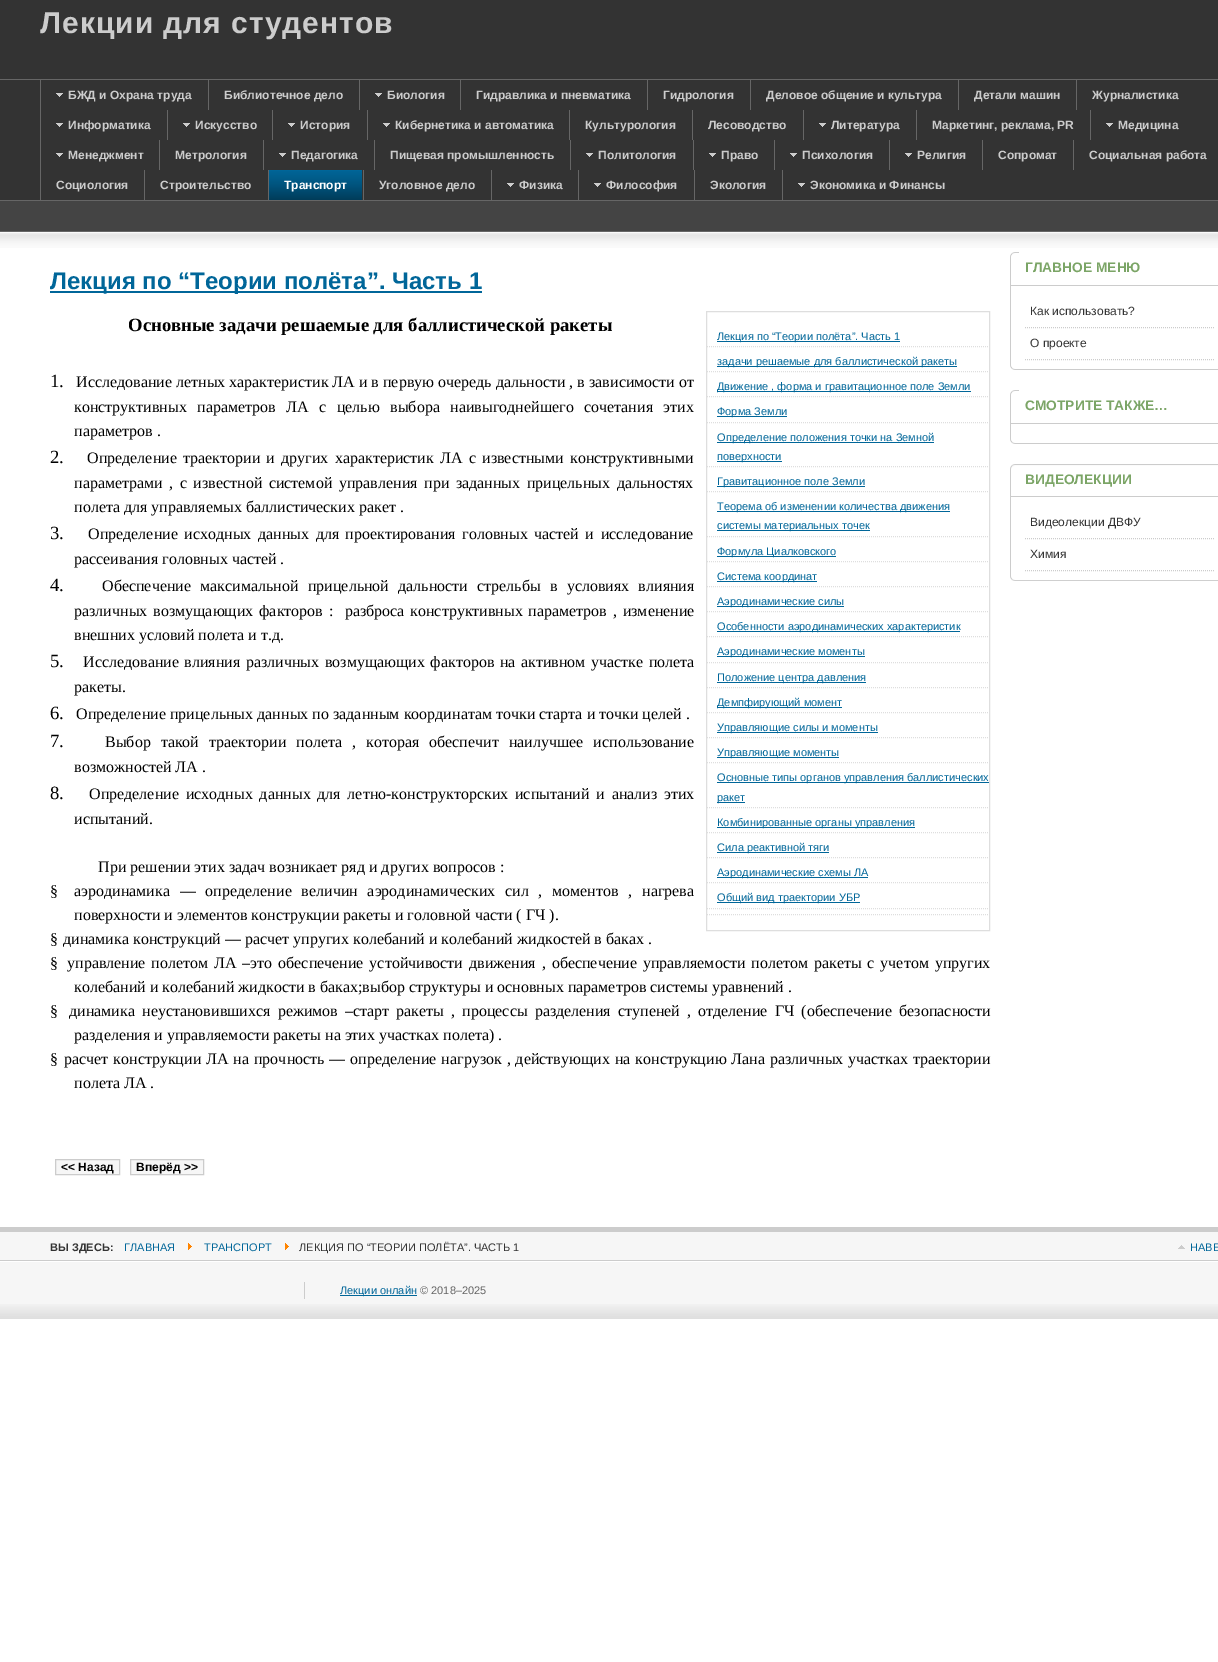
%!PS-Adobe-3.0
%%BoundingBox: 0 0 1218 1662
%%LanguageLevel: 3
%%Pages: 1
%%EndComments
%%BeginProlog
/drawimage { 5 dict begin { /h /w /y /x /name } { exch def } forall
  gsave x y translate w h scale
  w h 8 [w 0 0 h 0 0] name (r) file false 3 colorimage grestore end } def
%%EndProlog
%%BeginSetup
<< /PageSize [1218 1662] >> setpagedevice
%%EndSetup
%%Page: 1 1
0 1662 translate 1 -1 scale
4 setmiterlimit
1 setgray
0 0 1218 1662 rectfill
0.2 setgray
0 0 1218 79 rectfill
0 80 1218 120 rectfill
0.4 setgray
0 79 1218 1 rectfill
40 80 1 120 rectfill
(images/1.raw) 56 93 7 4 drawimage
208 80 1 30 rectfill
359 80 1 30 rectfill
(images/1.raw) 375 93 7 4 drawimage
460 80 1 30 rectfill
647 80 1 30 rectfill
750 80 1 30 rectfill
958 80 1 30 rectfill
1076 80 1 30 rectfill
(images/1.raw) 56 123 7 4 drawimage
167 110 1 30 rectfill
(images/1.raw) 183 123 7 4 drawimage
272 110 1 30 rectfill
(images/1.raw) 288 123 7 4 drawimage
367 110 1 30 rectfill
(images/1.raw) 383 123 7 4 drawimage
569 110 1 30 rectfill
692 110 1 30 rectfill
803 110 1 30 rectfill
(images/1.raw) 819 123 7 4 drawimage
916 110 1 30 rectfill
1090 110 1 30 rectfill
(images/1.raw) 1106 123 7 4 drawimage
(images/1.raw) 56 153 7 4 drawimage
159 140 1 30 rectfill
263 140 1 30 rectfill
(images/1.raw) 279 153 7 4 drawimage
374 140 1 30 rectfill
570 140 1 30 rectfill
(images/1.raw) 586 153 7 4 drawimage
693 140 1 30 rectfill
(images/1.raw) 709 153 7 4 drawimage
774 140 1 30 rectfill
(images/1.raw) 790 153 7 4 drawimage
889 140 1 30 rectfill
(images/1.raw) 905 153 7 4 drawimage
982 140 1 30 rectfill
1073 140 1 30 rectfill
144 170 1 30 rectfill
0 0.4 0.6 setrgbcolor
269 170 93 30 rectfill
(images/2.raw) 269 171 93 29 drawimage
0.4 setgray
268 170 1 30 rectfill
363 170 1 30 rectfill
491 170 1 30 rectfill
(images/1.raw) 507 183 7 4 drawimage
578 170 1 30 rectfill
(images/1.raw) 594 183 7 4 drawimage
694 170 1 30 rectfill
782 170 1 30 rectfill
(images/1.raw) 798 183 7 4 drawimage
0.267 setgray
0 201 1218 30 rectfill
0.4 setgray
0 200 1218 1 rectfill
0 231 1218 1 rectfill
(images/3.raw) 0 232 1218 16 drawimage
0.8 setgray
0 1227 1218 5 rectfill
0 0.4 0.6 setrgbcolor
50 291 432 2 rectfill
0.871 setgray
706.5 311.5 283 619 rectstroke
[1 1] 0 setdash
newpath 707 346.5 moveto 989 346.5 lineto stroke
0 0.4 0.6 setrgbcolor
717 341 183 1 rectfill
0.871 setgray
newpath 707 371.5 moveto 989 371.5 lineto stroke
0 0.4 0.6 setrgbcolor
717 366 240 1 rectfill
0.871 setgray
newpath 707 396.5 moveto 989 396.5 lineto stroke
0 0.4 0.6 setrgbcolor
717 391 254 1 rectfill
0.871 setgray
newpath 707 422.5 moveto 989 422.5 lineto stroke
0 0.4 0.6 setrgbcolor
717 416 70 1 rectfill
0.871 setgray
newpath 707 466.5 moveto 989 466.5 lineto stroke
0 0.4 0.6 setrgbcolor
717 442 217 1 rectfill
717 461 65 1 rectfill
0.871 setgray
newpath 707 491.5 moveto 989 491.5 lineto stroke
0 0.4 0.6 setrgbcolor
717 486 148 1 rectfill
0.871 setgray
newpath 707 536.5 moveto 989 536.5 lineto stroke
0 0.4 0.6 setrgbcolor
717 511 233 1 rectfill
717 530 153 1 rectfill
0.871 setgray
newpath 707 561.5 moveto 989 561.5 lineto stroke
0 0.4 0.6 setrgbcolor
717 556 119 1 rectfill
0.871 setgray
newpath 707 586.5 moveto 989 586.5 lineto stroke
0 0.4 0.6 setrgbcolor
717 581 100 1 rectfill
0.871 setgray
newpath 707 611.5 moveto 989 611.5 lineto stroke
0 0.4 0.6 setrgbcolor
717 606 127 1 rectfill
0.871 setgray
newpath 707 636.5 moveto 989 636.5 lineto stroke
0 0.4 0.6 setrgbcolor
717 631 243 1 rectfill
0.871 setgray
newpath 707 662.5 moveto 989 662.5 lineto stroke
0 0.4 0.6 setrgbcolor
717 656 148 1 rectfill
0.871 setgray
newpath 707 687.5 moveto 989 687.5 lineto stroke
0 0.4 0.6 setrgbcolor
717 682 149 1 rectfill
0.871 setgray
newpath 707 712.5 moveto 989 712.5 lineto stroke
0 0.4 0.6 setrgbcolor
717 707 125 1 rectfill
0.871 setgray
newpath 707 737.5 moveto 989 737.5 lineto stroke
0 0.4 0.6 setrgbcolor
717 732 161 1 rectfill
0.871 setgray
newpath 707 762.5 moveto 989 762.5 lineto stroke
0 0.4 0.6 setrgbcolor
717 757 122 1 rectfill
0.871 setgray
newpath 707 807.5 moveto 989 807.5 lineto stroke
0 0.4 0.6 setrgbcolor
717 782 272 1 rectfill
717 802 28 1 rectfill
0.871 setgray
newpath 707 832.5 moveto 989 832.5 lineto stroke
0 0.4 0.6 setrgbcolor
717 827 198 1 rectfill
0.871 setgray
newpath 707 857.5 moveto 989 857.5 lineto stroke
0 0.4 0.6 setrgbcolor
717 852 112 1 rectfill
0.871 setgray
newpath 707 882.5 moveto 989 882.5 lineto stroke
0 0.4 0.6 setrgbcolor
717 877 151 1 rectfill
0.871 setgray
newpath 707 908.5 moveto 989 908.5 lineto stroke
0 0.4 0.6 setrgbcolor
717 902 143 1 rectfill
0.871 setgray
newpath 707 914.5 moveto 989 914.5 lineto stroke
0.965 setgray
newpath 55.5 1159.5 moveto 119.5 1159.5 lineto 119.5 1174.5 lineto 55.5 1174.5 lineto closepath gsave fill grestore
0.8 setgray
[] 0 setdash
stroke
0.965 setgray
newpath 130.5 1159.5 moveto 203.5 1159.5 lineto 203.5 1174.5 lineto 130.5 1174.5 lineto closepath gsave fill grestore
0.8 setgray
stroke
1010 369 208 1 rectfill
(images/4.raw) 1010 283 5 87 drawimage
(images/5.raw) 1010 252 9 31 drawimage
1010 285 208 1 rectfill
[1 1] 0 setdash
newpath 1025 327.5 moveto 1215 327.5 lineto stroke
newpath 1025 359.5 moveto 1215 359.5 lineto stroke
1010 443 208 1 rectfill
(images/6.raw) 1010 421 5 23 drawimage
(images/5.raw) 1010 390 9 31 drawimage
1010 423 208 1 rectfill
0.812 setgray
1010 580 208 1 rectfill
(images/7.raw) 1010 497 5 84 drawimage
(images/8.raw) 1015 464 203 32 drawimage
(images/9.raw) 1010 464 5 32 drawimage
0.8 setgray
1010 496 208 1 rectfill
newpath 1025 538.5 moveto 1215 538.5 lineto stroke
newpath 1025 570.5 moveto 1215 570.5 lineto stroke
0.965 setgray
0 1232 1218 28 rectfill
0.8 setgray
0 1260 1218 1 rectfill
(images/10.raw) 188 1243 4 7 drawimage
(images/10.raw) 285 1243 4 7 drawimage
(images/11.raw) 1178 1245 7 4 drawimage
0.965 setgray
0 1262 1218 42 rectfill
(images/12.raw) 0 1304 1218 15 drawimage
0.8 setgray
304 1282 1 17 rectfill
0 0.4 0.6 setrgbcolor
340 1295 77 1 rectfill
/LiberationSans-Bold [30 0 0 -30 0 0] selectfont
0.8 setgray
40 33 moveto 1 0 (Лекции для студентов) ashow
/LiberationSans-Bold [12 0 0 -12 0 0] selectfont
68 99 moveto (БЖД и Охрана труда) show
224 99 moveto (Библиотечное дело) show
387 99 moveto (Биология) show
476 99 moveto (Гидравлика и пневматика) show
663 99 moveto (Гидрология) show
766 99 moveto (Деловое общение и культура) show
974 99 moveto (Детали машин) show
1092 99 moveto (Журналистика) show
68 129 moveto (Информатика) show
195 129 moveto (Искусство) show
300 129 moveto (История) show
395 129 moveto (Кибернетика и автоматика) show
585 129 moveto (Культурология) show
708 129 moveto (Лесоводство) show
831 129 moveto (Литература) show
932 129 moveto (Маркетинг, реклама, PR) show
1118 129 moveto (Медицина) show
68 159 moveto (Менеджмент) show
175 159 moveto (Метрология) show
291 159 moveto (Педагогика) show
390 159 moveto (Пищевая промышленность) show
598 159 moveto (Политология) show
721 159 moveto (Право) show
802 159 moveto (Психология) show
917 159 moveto (Религия) show
998 159 moveto (Сопромат) show
1089 159 moveto (Социальная работа) show
56 189 moveto (Социология) show
160 189 moveto (Строительство) show
1 setgray
284 189 moveto (Транспорт) show
0.8 setgray
379 189 moveto (Уголовное дело) show
519 189 moveto (Физика) show
606 189 moveto (Философия) show
710 189 moveto (Экология) show
810 189 moveto (Экономика и Финансы) show
/LiberationSans-Bold [24 0 0 -24 0 0] selectfont
0 0.4 0.6 setrgbcolor
50 289 moveto (Лекция по “Теории полёта”. Часть 1) show
/LiberationSerif-Bold [18.7 0 0 -18.7 0 0] selectfont
0 setgray
128 331 moveto (Основные задачи решаемые для баллистической ракеты) show
/LiberationSerif-Regular [18.7 0 0 -18.7 0 0] selectfont
50 387 moveto (1.) show
/LiberationSerif-Regular [16 0 0 -16 0 0] selectfont
76 387 moveto (Исследование летных характеристик ЛА и в первую очередь дальности , в зависимости от) show
74 412 moveto 6.5 0 32 (конструктивных параметров ЛА с целью выбора наивыгоднейшего сочетания этих) widthshow
74 436 moveto (параметров .) show
/LiberationSans-Regular [11 0 0 -11 0 0] selectfont
0 0.4 0.6 setrgbcolor
717 340 moveto (Лекция по “Теории полёта”. Часть 1) show
717 365 moveto (задачи решаемые для баллистической ракеты) show
717 390 moveto (Движение , форма и гравитационное поле Земли) show
717 415 moveto (Форма Земли) show
717 441 moveto (Определение положения точки на Земной) show
717 460 moveto (поверхности) show
717 485 moveto (Гравитационное поле Земли) show
717 510 moveto (Теорема об изменении количества движения) show
717 529 moveto (системы материальных точек) show
717 555 moveto (Формула Циалковского) show
717 580 moveto (Система координат) show
717 605 moveto (Аэродинамические силы) show
717 630 moveto (Особенности аэродинамических характеристик) show
717 655 moveto (Аэродинамические моменты) show
717 681 moveto (Положение центра давления) show
717 706 moveto (Демпфирующий момент) show
717 731 moveto (Управляющие силы и моменты) show
717 756 moveto (Управляющие моменты) show
717 781 moveto (Основные типы органов управления баллистических) show
717 801 moveto (ракет) show
717 826 moveto (Комбинированные органы управления) show
717 851 moveto (Сила реактивной тяги) show
717 876 moveto (Аэродинамические схемы ЛА) show
717 901 moveto (Общий вид траектории УБР) show
/LiberationSerif-Regular [18.7 0 0 -18.7 0 0] selectfont
0 setgray
50 463 moveto (2.) show
/LiberationSerif-Regular [16 0 0 -16 0 0] selectfont
87 463 moveto 2.25 0 32 (Определение траектории и других характеристик ЛА с известными конструктивными) widthshow
74 488 moveto 2.5 0 32 (параметрами , с известной системой управления при заданных прицельных дальностях) widthshow
74 512 moveto (полета для управляемых баллистических ракет .) show
/LiberationSerif-Regular [18.7 0 0 -18.7 0 0] selectfont
50 539 moveto (3.) show
/LiberationSerif-Regular [16 0 0 -16 0 0] selectfont
88 539 moveto 2.5 0 32 (Определение исходных данных для проектирования головных частей и исследование) widthshow
74 564 moveto (рассеивания головных частей .) show
/LiberationSerif-Regular [18.7 0 0 -18.7 0 0] selectfont
50 591 moveto (4.) show
/LiberationSerif-Regular [16 0 0 -16 0 0] selectfont
102 591 moveto 5.25 0 32 (Обеспечение максимальной прицельной дальности стрельбы в условиях влияния) widthshow
74 616 moveto 1.75 0 32 (различных возмущающих факторов :  разброса конструктивных параметров , изменение) widthshow
74 640 moveto (внешних условий полета и т.д.) show
/LiberationSerif-Regular [18.7 0 0 -18.7 0 0] selectfont
50 667 moveto (5.) show
/LiberationSerif-Regular [16 0 0 -16 0 0] selectfont
83 667 moveto 1.5 0 32 (Исследование влияния различных возмущающих факторов на активном участке полета) widthshow
74 692 moveto (ракеты.) show
/LiberationSerif-Regular [18.7 0 0 -18.7 0 0] selectfont
50 719 moveto (6.) show
/LiberationSerif-Regular [16 0 0 -16 0 0] selectfont
76 719 moveto (Определение прицельных данных по заданным координатам точки старта и точки целей .) show
/LiberationSerif-Regular [18.7 0 0 -18.7 0 0] selectfont
50 747 moveto (7.) show
/LiberationSerif-Regular [16 0 0 -16 0 0] selectfont
105 747 moveto 6 0 32 (Выбор такой траектории полета , которая обеспечит наилучшее использование) widthshow
74 772 moveto (возможностей ЛА .) show
/LiberationSerif-Regular [18.7 0 0 -18.7 0 0] selectfont
50 799 moveto (8.) show
/LiberationSerif-Regular [16 0 0 -16 0 0] selectfont
89 799 moveto 2.75 0 32 (Определение исходных данных для летно-конструкторских испытаний и анализ этих) widthshow
74 824 moveto (испытаний.) show
98 872 moveto (При решении этих задач возникает ряд и других вопросов :) show
50 896 moveto (§) show
74 896 moveto 5.75 0 32 (аэродинамика — определение величин аэродинамических сил , моментов , нагрева) widthshow
74 920 moveto (поверхности и элементов конструкции ракеты и головной части \( ГЧ \).) show
50 944 moveto (§) show
63 944 moveto (динамика конструкций — расчет упругих колебаний и колебаний жидкостей в баках .) show
50 968 moveto (§) show
67 968 moveto 1.9 0 32 (управление полетом ЛА –это обеспечение устойчивости движения , обеспечение управляемости полетом ракеты с учетом упругих) widthshow
74 992 moveto (колебаний и колебаний жидкости в баках;выбор структуры и основных параметров системы уравнений .) show
50 1016 moveto (§) show
69 1016 moveto 3.1 0 32 (динамика неустановившихся режимов –старт ракеты , процессы разделения ступеней , отделение ГЧ \(обеспечение безопасности) widthshow
74 1040 moveto (разделения и управляемости ракеты на этих участках полета\) .) show
50 1064 moveto (§) show
64 1064 moveto 0.9 0 32 (расчет конструкции ЛА на прочность — определение нагрузок , действующих на конструкцию Лана различных участках траектории) widthshow
74 1088 moveto (полета ЛА .) show
/LiberationSans-Bold [12 0 0 -12 0 0] selectfont
61 1171 moveto (<< Назад) show
136 1171 moveto (Вперёд >>) show
/LiberationSans-Bold [13.75 0 0 -13.75 0 0] selectfont
0.482 0.647 0.4 setrgbcolor
1025 272 moveto (ГЛАВНОЕ МЕНЮ) show
/LiberationSans-Regular [12 0 0 -12 0 0] selectfont
0.2 setgray
1030 315 moveto (Как использовать?) show
1030 347 moveto (О проекте) show
/LiberationSans-Bold [13.75 0 0 -13.75 0 0] selectfont
0.482 0.647 0.4 setrgbcolor
1025 410 moveto (СМОТРИТЕ ТАКЖЕ…) show
1025 484 moveto (ВИДЕОЛЕКЦИИ) show
/LiberationSans-Regular [12 0 0 -12 0 0] selectfont
0.2 setgray
1030 526 moveto (Видеолекции ДВФУ) show
1030 558 moveto (Химия) show
/LiberationSans-Bold [11 0 0 -11 0 0] selectfont
50 1251 moveto (ВЫ ЗДЕСЬ:) show
/LiberationSans-Regular [11 0 0 -11 0 0] selectfont
0 0.4 0.6 setrgbcolor
124 1251 moveto (ГЛАВНАЯ) show
204 1251 moveto (ТРАНСПОРТ) show
0.2 setgray
299 1251 moveto (ЛЕКЦИЯ ПО “ТЕОРИИ ПОЛЁТА”. ЧАСТЬ 1) show
0 0.4 0.6 setrgbcolor
1190 1251 moveto (НАВЕ) show
340 1294 moveto (Лекции онлайн) show
0.4 setgray
420 1294 moveto (© 2018–2025) show
showpage
%%EOF
